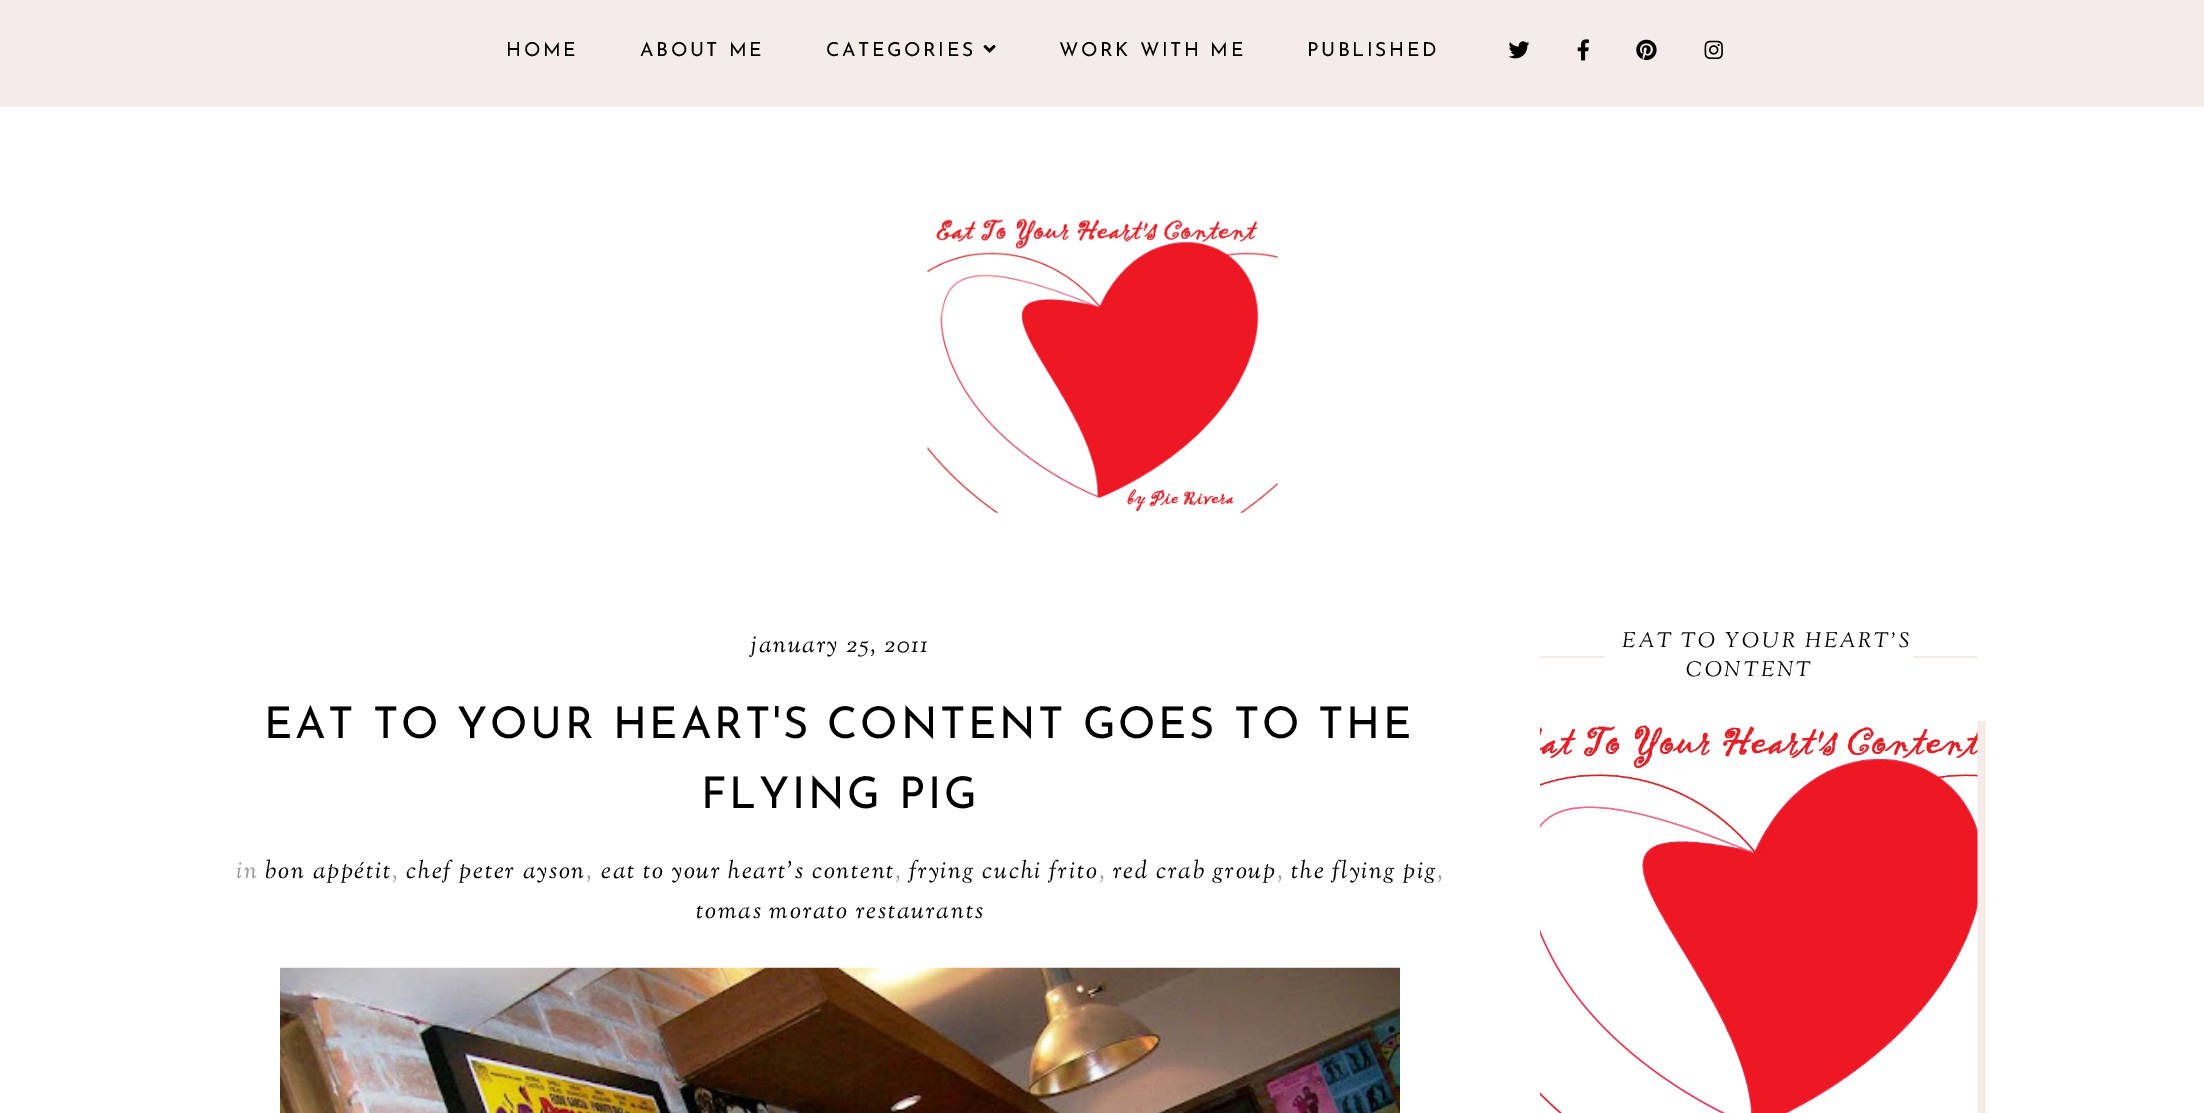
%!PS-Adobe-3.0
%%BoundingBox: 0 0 2204 1113
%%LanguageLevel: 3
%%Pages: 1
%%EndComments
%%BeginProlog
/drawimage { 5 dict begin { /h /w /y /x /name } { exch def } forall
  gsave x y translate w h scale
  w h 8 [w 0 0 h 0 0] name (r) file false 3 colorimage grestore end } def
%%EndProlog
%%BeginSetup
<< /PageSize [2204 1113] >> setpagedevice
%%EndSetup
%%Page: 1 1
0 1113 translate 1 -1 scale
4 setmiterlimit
1 setgray
0 0 2204 1113 rectfill
0.961 0.925 0.918 setrgbcolor
0 0 2204 107 rectfill
(images/1.raw) 983 45 13 8 drawimage
(images/2.raw) 1508 41 22 18 drawimage
(images/3.raw) 1577 39 12 22 drawimage
(images/4.raw) 1636 39 21 22 drawimage
(images/5.raw) 1704 40 19 20 drawimage
(images/6.raw) 927 218 351 295 drawimage
(images/7.raw) 280 967 1120 146 drawimage
1540 656 438 2 rectfill
1 setgray
1605 656 308 2 rectfill
0.961 0.925 0.918 setrgbcolor
1977 721 9 392 rectfill
(images/8.raw) 1540 721 438 392 drawimage
/JosefinSans-Regular [19.25 0 0 -19.25 0 0] selectfont
0 setgray
506 56 moveto 2.6 0 (HOME) ashow
640 56 moveto 2.6 0 (ABOUT ME) ashow
826 56 moveto 2.6 0 (CATEGORIES) ashow
1059 56 moveto 2.6 0 (WORK WITH ME) ashow
1307 56 moveto 2.6 0 (PUBLISHED) ashow
/SortsMillGoudy-Italic [24.5 0 0 -24.5 0 0] selectfont
751 652 moveto 1.75 0 (january 25, 2011) ashow
/JosefinSans-Regular [43.75 0 0 -43.75 0 0] selectfont
264 738 moveto 2.6 0 (EAT TO YOUR HEART'S CONTENT GOES TO THE) ashow
701 808 moveto 2.6 0 (FLYING PIG) ashow
/SortsMillGoudy-Italic [24.5 0 0 -24.5 0 0] selectfont
0.6 setgray
236 878 moveto 1.75 0 (in) ashow
0 setgray
265 878 moveto 1.75 0 (bon appétit) ashow
0.6 setgray
392 878 moveto 1.75 0 (,) ashow
0 setgray
406 878 moveto 1.75 0 (chef peter ayson) ashow
0.6 setgray
586 878 moveto 1.75 0 (,) ashow
0 setgray
601 878 moveto 1.75 0 (eat to your heart’s content) ashow
0.6 setgray
895 878 moveto 1.75 0 (,) ashow
0 setgray
909 878 moveto 1.75 0 (frying cuchi frito) ashow
0.6 setgray
1099 878 moveto 1.75 0 (,) ashow
0 setgray
1113 878 moveto 1.75 0 (red crab group) ashow
0.6 setgray
1277 878 moveto 1.75 0 (,) ashow
0 setgray
1291 878 moveto 1.75 0 (the flying pig) ashow
0.6 setgray
1437 878 moveto 1.75 0 (,) ashow
0 setgray
696 918 moveto 1.75 0 (tomas morato restaurants) ashow
/SortsMillGoudy-Italic [21 0 0 -21 0 0] selectfont
1622 647 moveto 2.6 0 (EAT TO YOUR HEART'S) ashow
1686 676 moveto 2.6 0 (CONTENT) ashow
showpage
%%EOF
